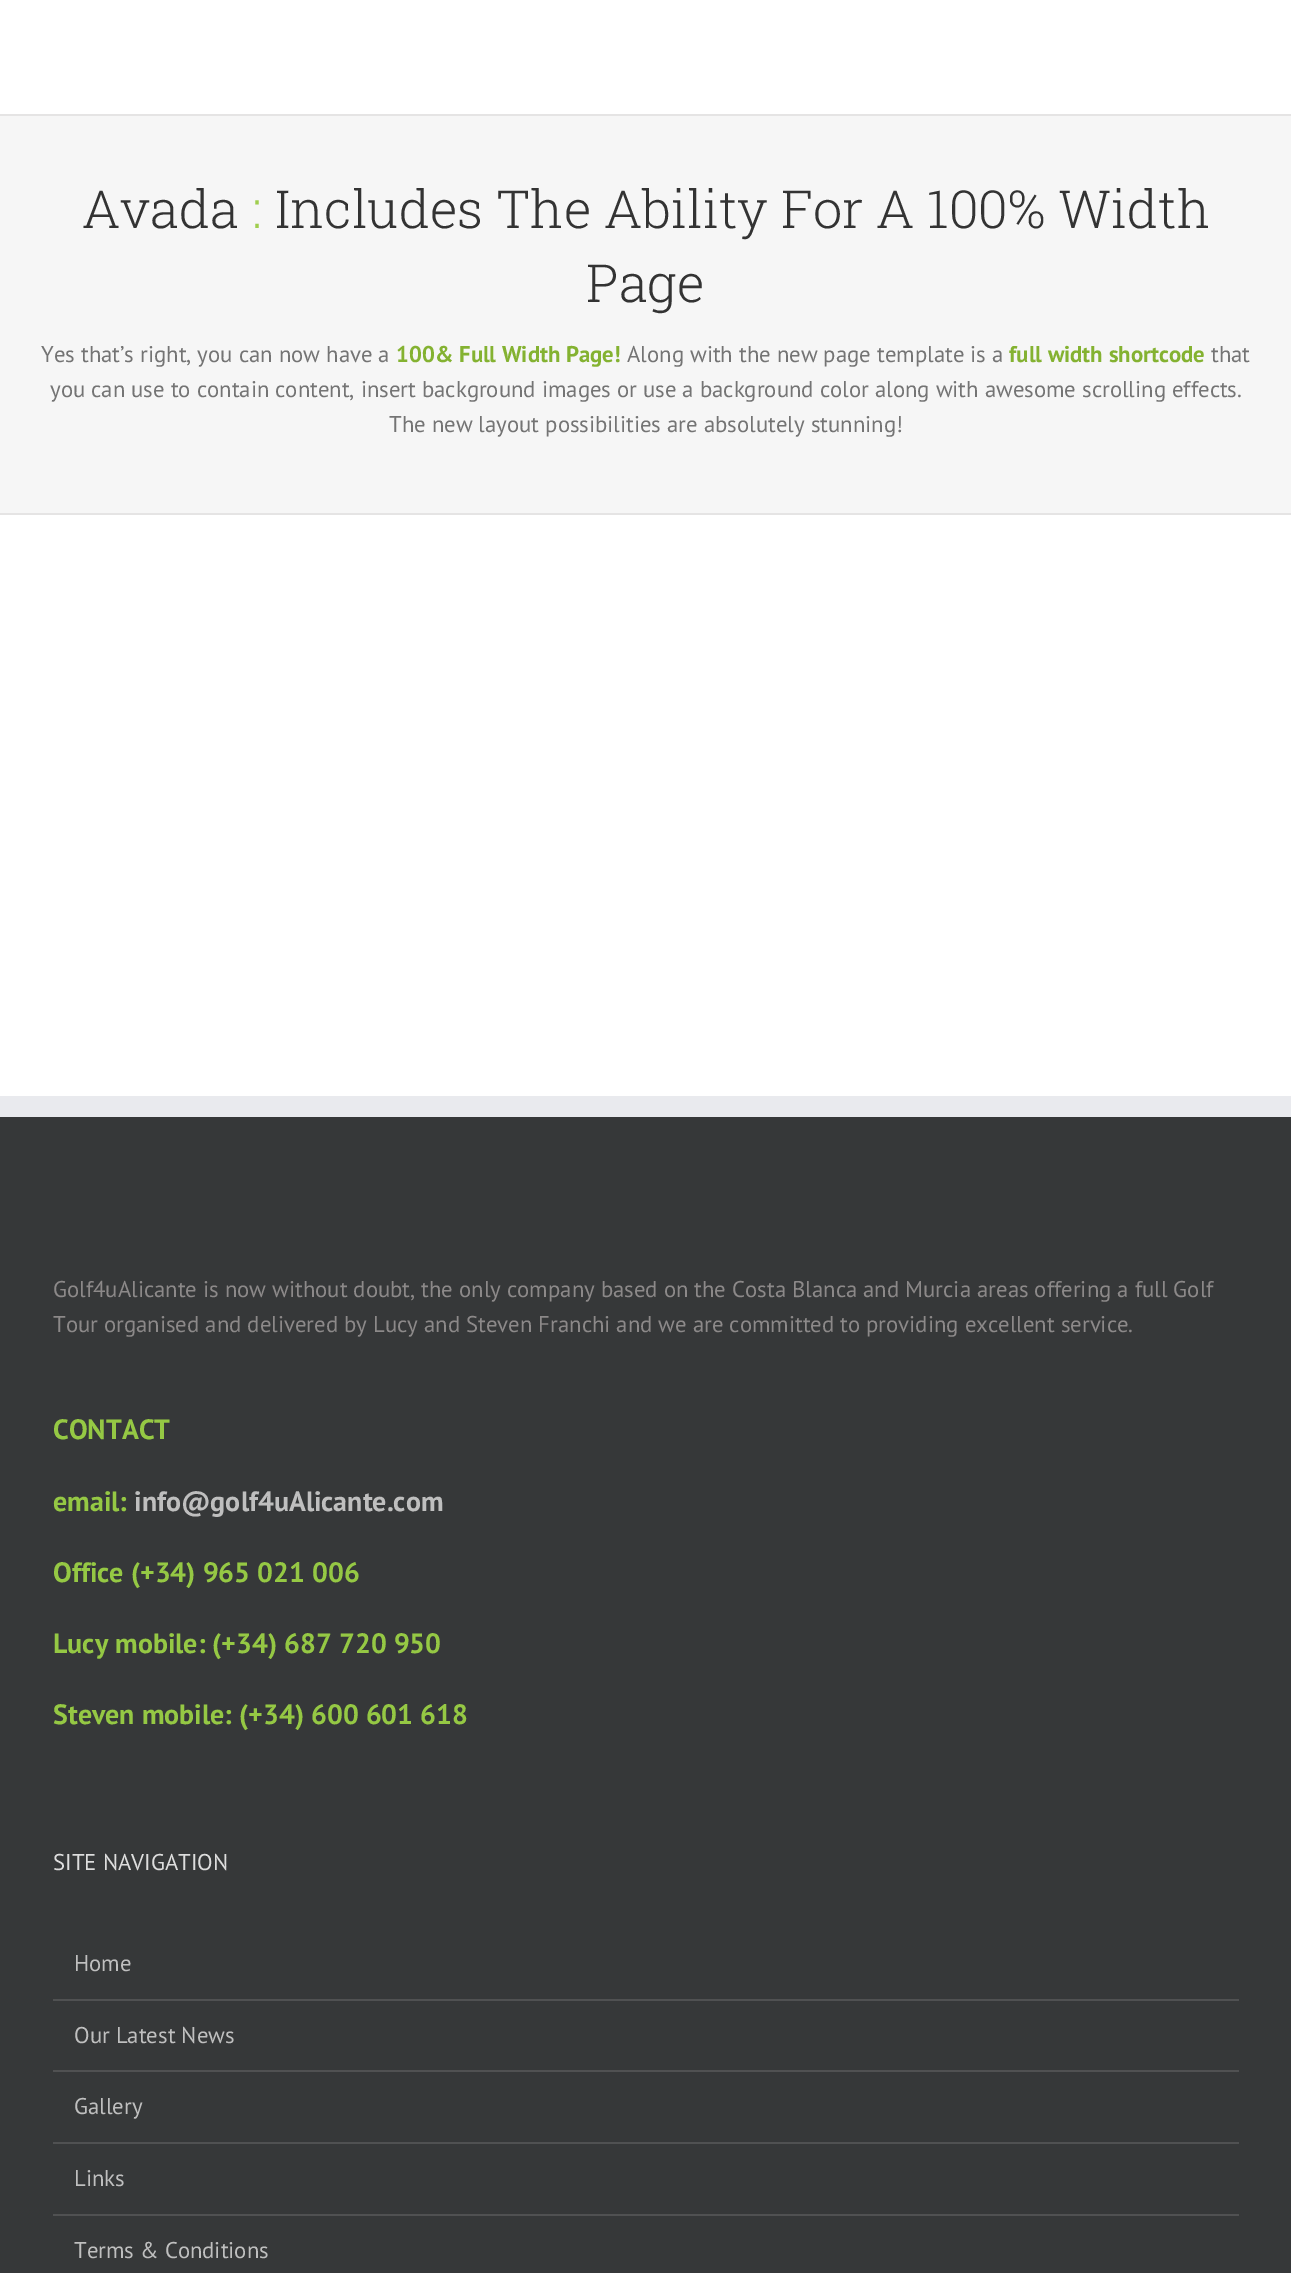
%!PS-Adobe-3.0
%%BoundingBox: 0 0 1291 2273
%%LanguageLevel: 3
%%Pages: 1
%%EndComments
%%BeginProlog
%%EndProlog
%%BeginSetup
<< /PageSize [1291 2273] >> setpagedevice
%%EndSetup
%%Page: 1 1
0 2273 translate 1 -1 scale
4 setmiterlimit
1 setgray
0 0 1291 2273 rectfill
0.965 setgray
0 116 1291 397 rectfill
0.898 0.894 0.894 setrgbcolor
0 114 1291 2 rectfill
0 513 1291 2 rectfill
0.212 0.22 0.224 setrgbcolor
0 1117 1291 1156 rectfill
0.914 0.918 0.933 setrgbcolor
0 1096 1291 21 rectfill
0.314 0.318 0.322 setrgbcolor
53 1999 1186 2 rectfill
53 2070 1186 2 rectfill
53 2142 1186 2 rectfill
53 2214 1186 2 rectfill
/RobotoSlab-Light [52.5 0 0 -52.5 0 0] selectfont
0.2 setgray
82 228 moveto (Avada) show
0.627 0.808 0.306 setrgbcolor
252 228 moveto (:) show
0.2 setgray
275 228 moveto (Includes The Ability For A 100% Width) show
586 302 moveto (Page) show
/PTSans-Regular [22.75 0 0 -22.75 0 0] selectfont
0.455 setgray
41 362 moveto (Yes that’s right, you can now have a) show
/PTSans-Bold [22.75 0 0 -22.75 0 0] selectfont
0.518 0.698 0.192 setrgbcolor
396 362 moveto (100& Full Width Page!) show
/PTSans-Regular [22.75 0 0 -22.75 0 0] selectfont
0.455 setgray
627 362 moveto (Along with the new page template is a) show
/PTSans-Bold [22.75 0 0 -22.75 0 0] selectfont
0.518 0.698 0.192 setrgbcolor
1009 362 moveto (full width shortcode) show
/PTSans-Regular [22.75 0 0 -22.75 0 0] selectfont
0.455 setgray
1211 362 moveto (that) show
50 397 moveto (you can use to contain content, insert background images or use a background color along with awesome scrolling effects.) show
389 432 moveto (The new layout possibilities are absolutely stunning!) show
0.549 0.537 0.537 setrgbcolor
53 1297 moveto (Golf4uAlicante is now without doubt, the only company based on the Costa Blanca and Murcia areas offering a full Golf) show
53 1332 moveto (Tour organised and delivered by Lucy and Steven Franchi and we are committed to providing excellent service.) show
/PTSans-Bold [28 0 0 -28 0 0] selectfont
0.584 0.784 0.267 setrgbcolor
53 1439 moveto (CONTACT) show
53 1511 moveto (email:) show
0.749 setgray
134 1511 moveto (info@golf4uAlicante.com) show
0.584 0.784 0.267 setrgbcolor
53 1582 moveto (Office \(+34\) 965 021 006) show
53 1653 moveto (Lucy mobile: \(+34\) 687 720 950) show
53 1724 moveto (Steven mobile: \(+34\) 600 601 618) show
/PTSans-Regular [22.75 0 0 -22.75 0 0] selectfont
0.867 setgray
53 1870 moveto (SITE NAVIGATION) show
0.749 setgray
74 1971 moveto (Home) show
74 2043 moveto (Our Latest News) show
74 2114 moveto (Gallery) show
74 2186 moveto (Links) show
74 2258 moveto (Terms & Conditions) show
showpage
%%EOF
